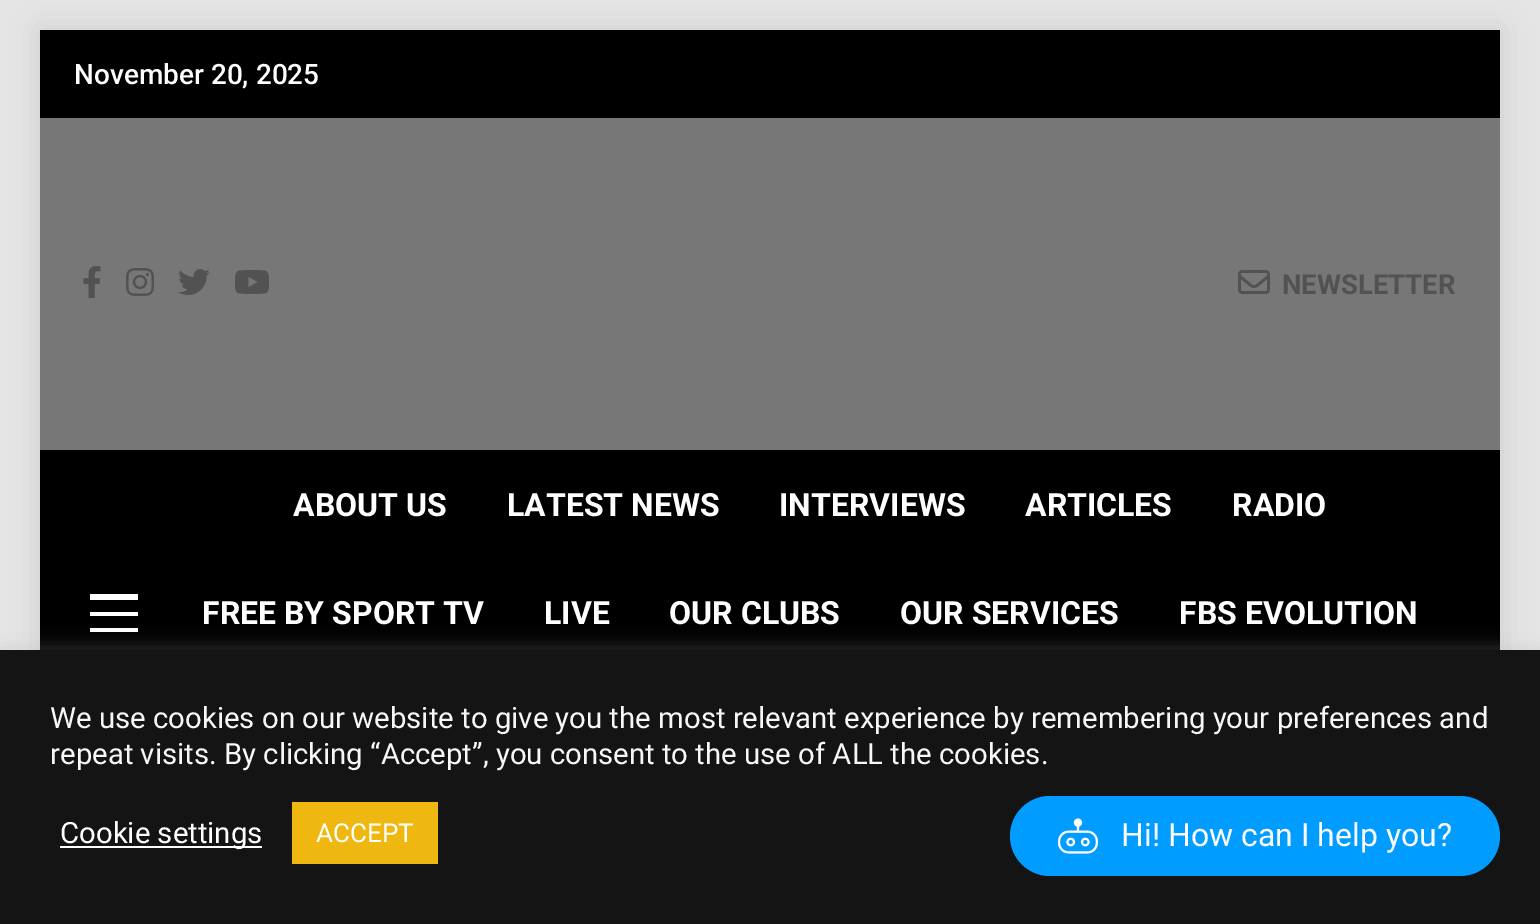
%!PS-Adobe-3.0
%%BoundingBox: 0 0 1540 924
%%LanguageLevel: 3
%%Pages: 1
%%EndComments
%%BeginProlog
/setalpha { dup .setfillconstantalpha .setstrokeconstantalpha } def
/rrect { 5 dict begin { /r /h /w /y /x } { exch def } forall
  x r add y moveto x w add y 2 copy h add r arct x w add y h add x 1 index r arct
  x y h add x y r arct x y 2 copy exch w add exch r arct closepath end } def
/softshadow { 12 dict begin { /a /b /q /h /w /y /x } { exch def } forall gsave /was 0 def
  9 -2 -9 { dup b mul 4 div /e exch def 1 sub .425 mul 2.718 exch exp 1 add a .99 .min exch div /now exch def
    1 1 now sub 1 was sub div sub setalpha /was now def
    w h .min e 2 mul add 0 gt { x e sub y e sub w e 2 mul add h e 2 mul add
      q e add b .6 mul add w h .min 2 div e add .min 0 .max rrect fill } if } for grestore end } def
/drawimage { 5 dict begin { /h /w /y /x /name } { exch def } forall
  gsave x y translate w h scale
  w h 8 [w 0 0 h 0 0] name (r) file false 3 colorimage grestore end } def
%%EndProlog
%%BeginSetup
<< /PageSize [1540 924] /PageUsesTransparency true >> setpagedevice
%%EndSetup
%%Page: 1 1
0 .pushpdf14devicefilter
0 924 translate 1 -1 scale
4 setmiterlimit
0.898 setgray
0 0 1540 924 rectfill
0 setgray
40 30 1460 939 0 15 0.1 softshadow
40 30 1460 88 rectfill
0.467 setgray
40 118 1460 332 rectfill
(images/1.raw) 83 266 18 32 drawimage
(images/2.raw) 126 268 28 28 drawimage
(images/3.raw) 178 269 32 26 drawimage
(images/4.raw) 235 270 34 24 drawimage
(images/5.raw) 1238 270 32 24 drawimage
0 setgray
40 450 1460 200 rectfill
1 setgray
90 594 48 6 rectfill
90 612 48 4 rectfill
90 628 48 4 rectfill
0.675 0.671 0.671 setrgbcolor
0 648 1540 274 0 10 0.3 softshadow
0.078 setgray
0 650 1540 274 rectfill
1 setgray
60 846 202 2 rectfill
0.937 0.722 0.063 setrgbcolor
292 802 146 62 rectfill
0 0.612 1 setrgbcolor
1010 796 490 80 40 rrect fill
(images/6.raw) 1058 818 40 36 drawimage
/Roboto-Medium [28 0 0 -28 0 0] selectfont
1 setgray
74 84 moveto (November 20, 2025) show
/Roboto-Bold [27.5 0 0 -27.5 0 0] selectfont
0.322 setgray
1282 294 moveto (NEWSLETTER) show
/Roboto-Bold [32 0 0 -32 0 0] selectfont
1 setgray
293 516 moveto (ABOUT US) show
507 516 moveto (LATEST NEWS) show
779 516 moveto (INTERVIEWS) show
1025 516 moveto (ARTICLES) show
1232 516 moveto (RADIO) show
202 624 moveto (FREE BY SPORT TV) show
544 624 moveto (LIVE) show
669 624 moveto (OUR CLUBS) show
900 624 moveto (OUR SERVICES) show
1179 624 moveto (FBS EVOLUTION) show
/Roboto-Regular [29.35 0 0 -29.35 0 0] selectfont
0.969 setgray
50 728 moveto (We use cookies on our website to give you the most relevant experience by remembering your preferences and) show
50 764 moveto (repeat visits. By clicking “Accept”, you consent to the use of ALL the cookies.) show
1 setgray
60 843 moveto (Cookie settings) show
/Roboto-Regular [26 0 0 -26 0 0] selectfont
316 842 moveto (ACCEPT) show
/Roboto-Regular [32 0 0 -32 0 0] selectfont
1121 846 moveto (Hi! How can I help you?) show
.poppdf14devicefilter showpage
%%EOF
